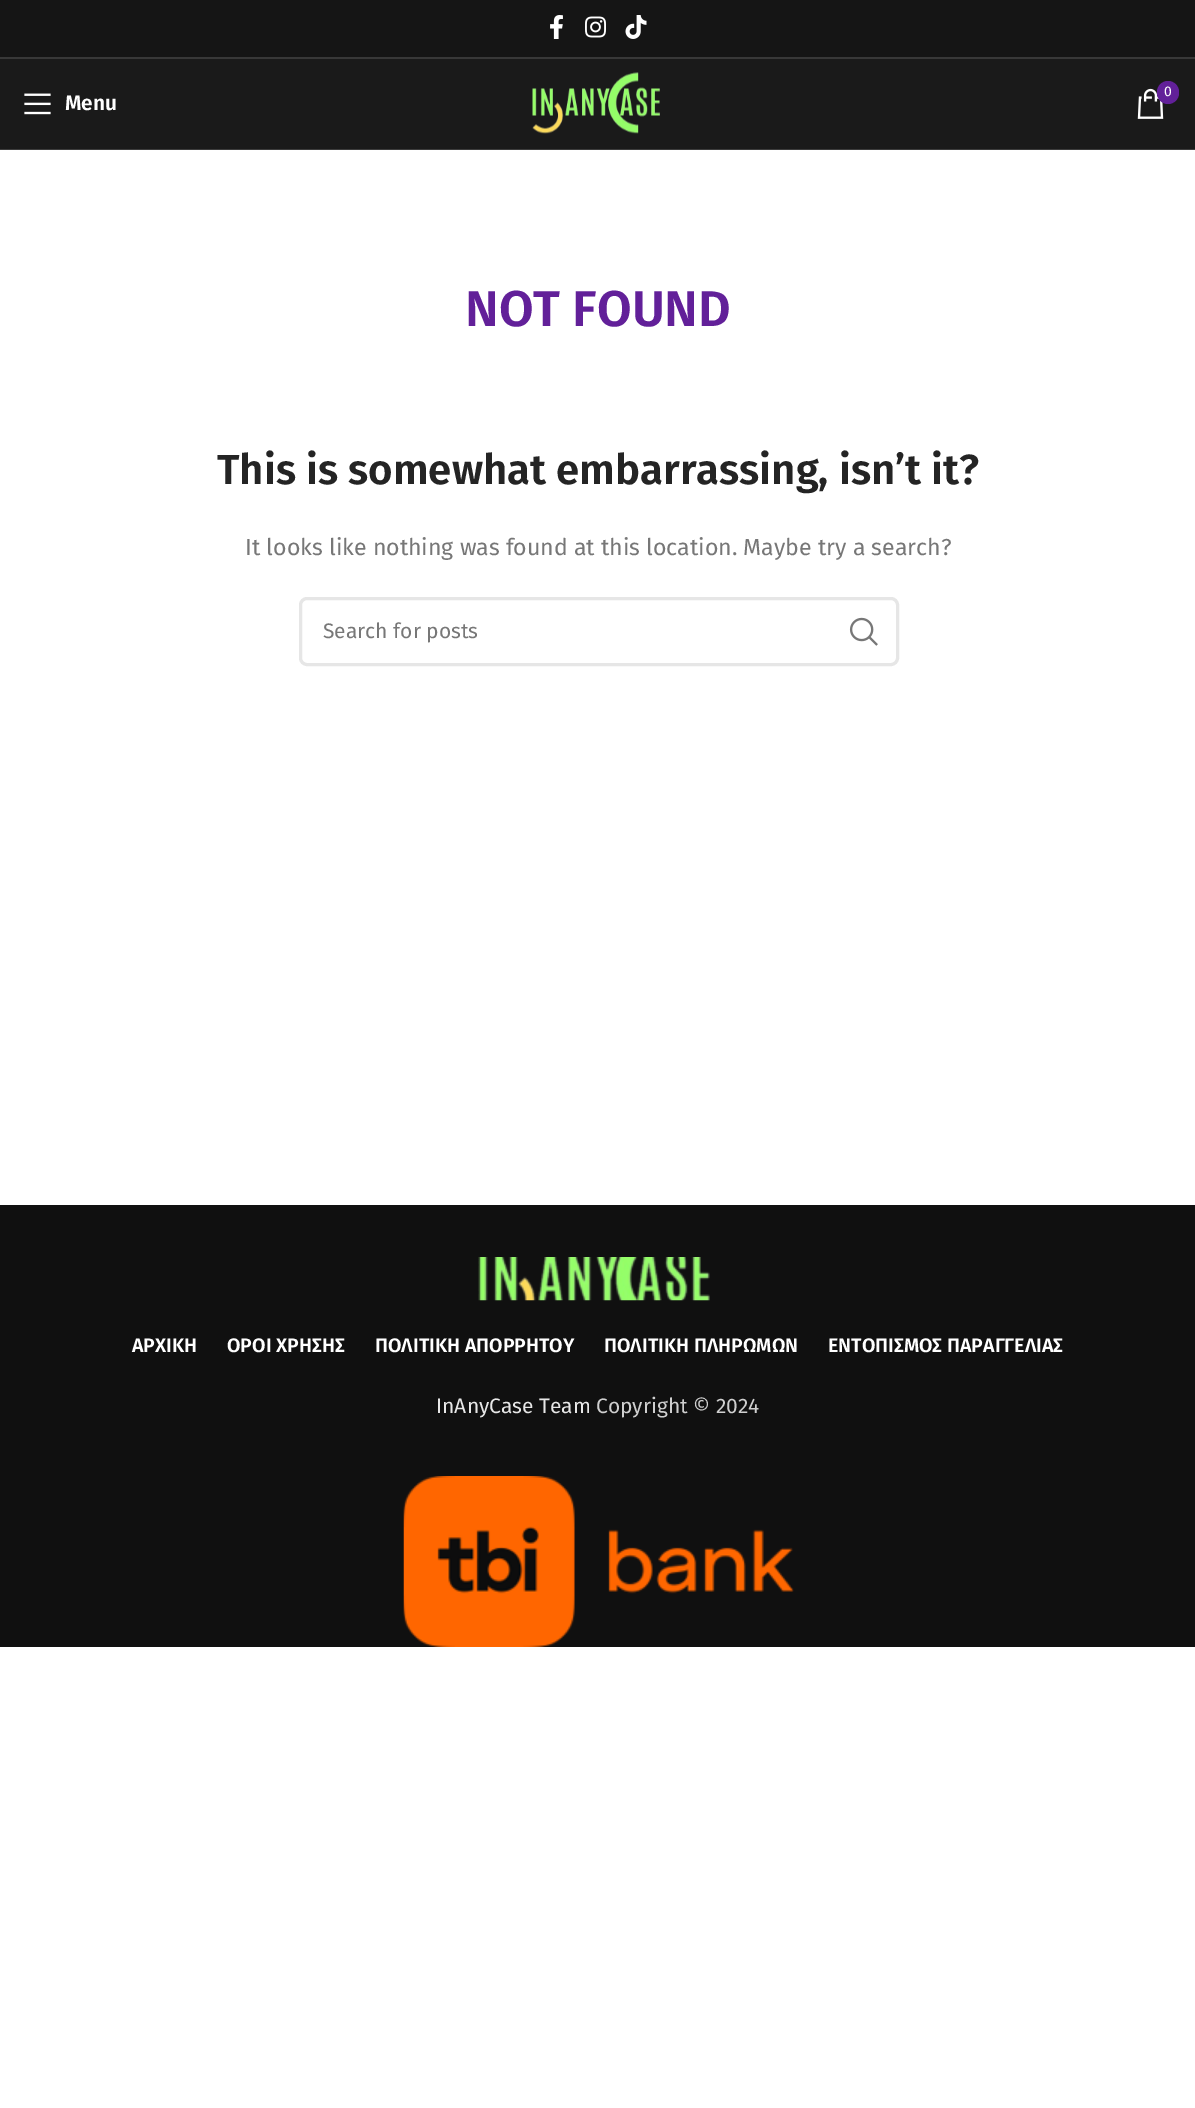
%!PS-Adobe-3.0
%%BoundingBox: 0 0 1195 2108
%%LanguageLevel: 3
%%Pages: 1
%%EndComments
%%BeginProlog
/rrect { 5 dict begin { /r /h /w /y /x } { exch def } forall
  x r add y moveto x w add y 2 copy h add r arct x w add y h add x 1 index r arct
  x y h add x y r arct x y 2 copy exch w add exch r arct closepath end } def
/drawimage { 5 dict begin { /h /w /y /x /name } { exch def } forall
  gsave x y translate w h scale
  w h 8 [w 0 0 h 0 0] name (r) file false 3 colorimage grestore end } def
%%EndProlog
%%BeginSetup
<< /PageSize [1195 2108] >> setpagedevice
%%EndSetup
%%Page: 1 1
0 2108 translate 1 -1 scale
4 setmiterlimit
1 setgray
0 0 1195 2108 rectfill
0.082 setgray
0 0 1195 57 rectfill
0.22 setgray
0 57 1195 2 rectfill
(images/1.raw) 550 15 13 24 drawimage
(images/2.raw) 585 16 21 22 drawimage
(images/3.raw) 625 15 22 24 drawimage
0.102 setgray
0 59 1195 90 rectfill
0.235 setgray
0 149 1195 1 rectfill
(images/4.raw) 532 72 128 62 drawimage
(images/5.raw) 1137 88 27 31 drawimage
0.384 0.125 0.6 setrgbcolor
1157 81 22 23 11 rrect fill
(images/6.raw) 24 93 27 22 drawimage
0.902 setgray
3 setlinewidth
300.5 598.5 597 66 6.5 rrect stroke
(images/7.raw) 849 617 29 29 drawimage
0.063 setgray
0 1205 1195 442 rectfill
(images/8.raw) 478 1257 232 44 drawimage
(images/9.raw) 403 1476 391 171 drawimage
/FiraSans-Regular [14 0 0 -14 0 0] selectfont
1 setgray
1164 96 moveto (0) show
/FiraSans-SemiBold [21 0 0 -21 0 0] selectfont
65 110 moveto (Menu) show
/FiraSans-SemiBold [50.25 0 0 -50.25 0 0] selectfont
0.384 0.125 0.6 setrgbcolor
465 326 moveto (NOT FOUND) show
/FiraSans-SemiBold [42 0 0 -42 0 0] selectfont
0.141 setgray
217 484 moveto (This is somewhat embarrassing, isn’t it?) show
/FiraSans-Regular [23.1 0 0 -23.1 0 0] selectfont
0.467 setgray
245 555 moveto (It looks like nothing was found at this location. Maybe try a search?) show
/FiraSans-Regular [21 0 0 -21 0 0] selectfont
323 638 moveto (Search for posts) show
/FiraSans-SemiBold [19.5 0 0 -19.5 0 0] selectfont
1 setgray
132 1352 moveto (ΑΡΧΙΚΗ) show
227 1352 moveto (ΟΡΟΙ ΧΡΗΣΗΣ) show
375 1352 moveto (ΠΟΛΙΤΙΚΗ ΑΠΟΡΡΗΤΟΥ) show
604 1352 moveto (ΠΟΛΙΤΙΚΗ ΠΛΗΡΩΜΩΝ) show
828 1352 moveto (ΕΝΤΟΠΙΣΜΟΣ ΠΑΡΑΓΓΕΛΙΑΣ) show
/FiraSans-Regular [21 0 0 -21 0 0] selectfont
0.906 setgray
436 1413 moveto (InAnyCase Team) show
0.812 setgray
596 1413 moveto (Copyright © 2024) show
showpage
%%EOF
